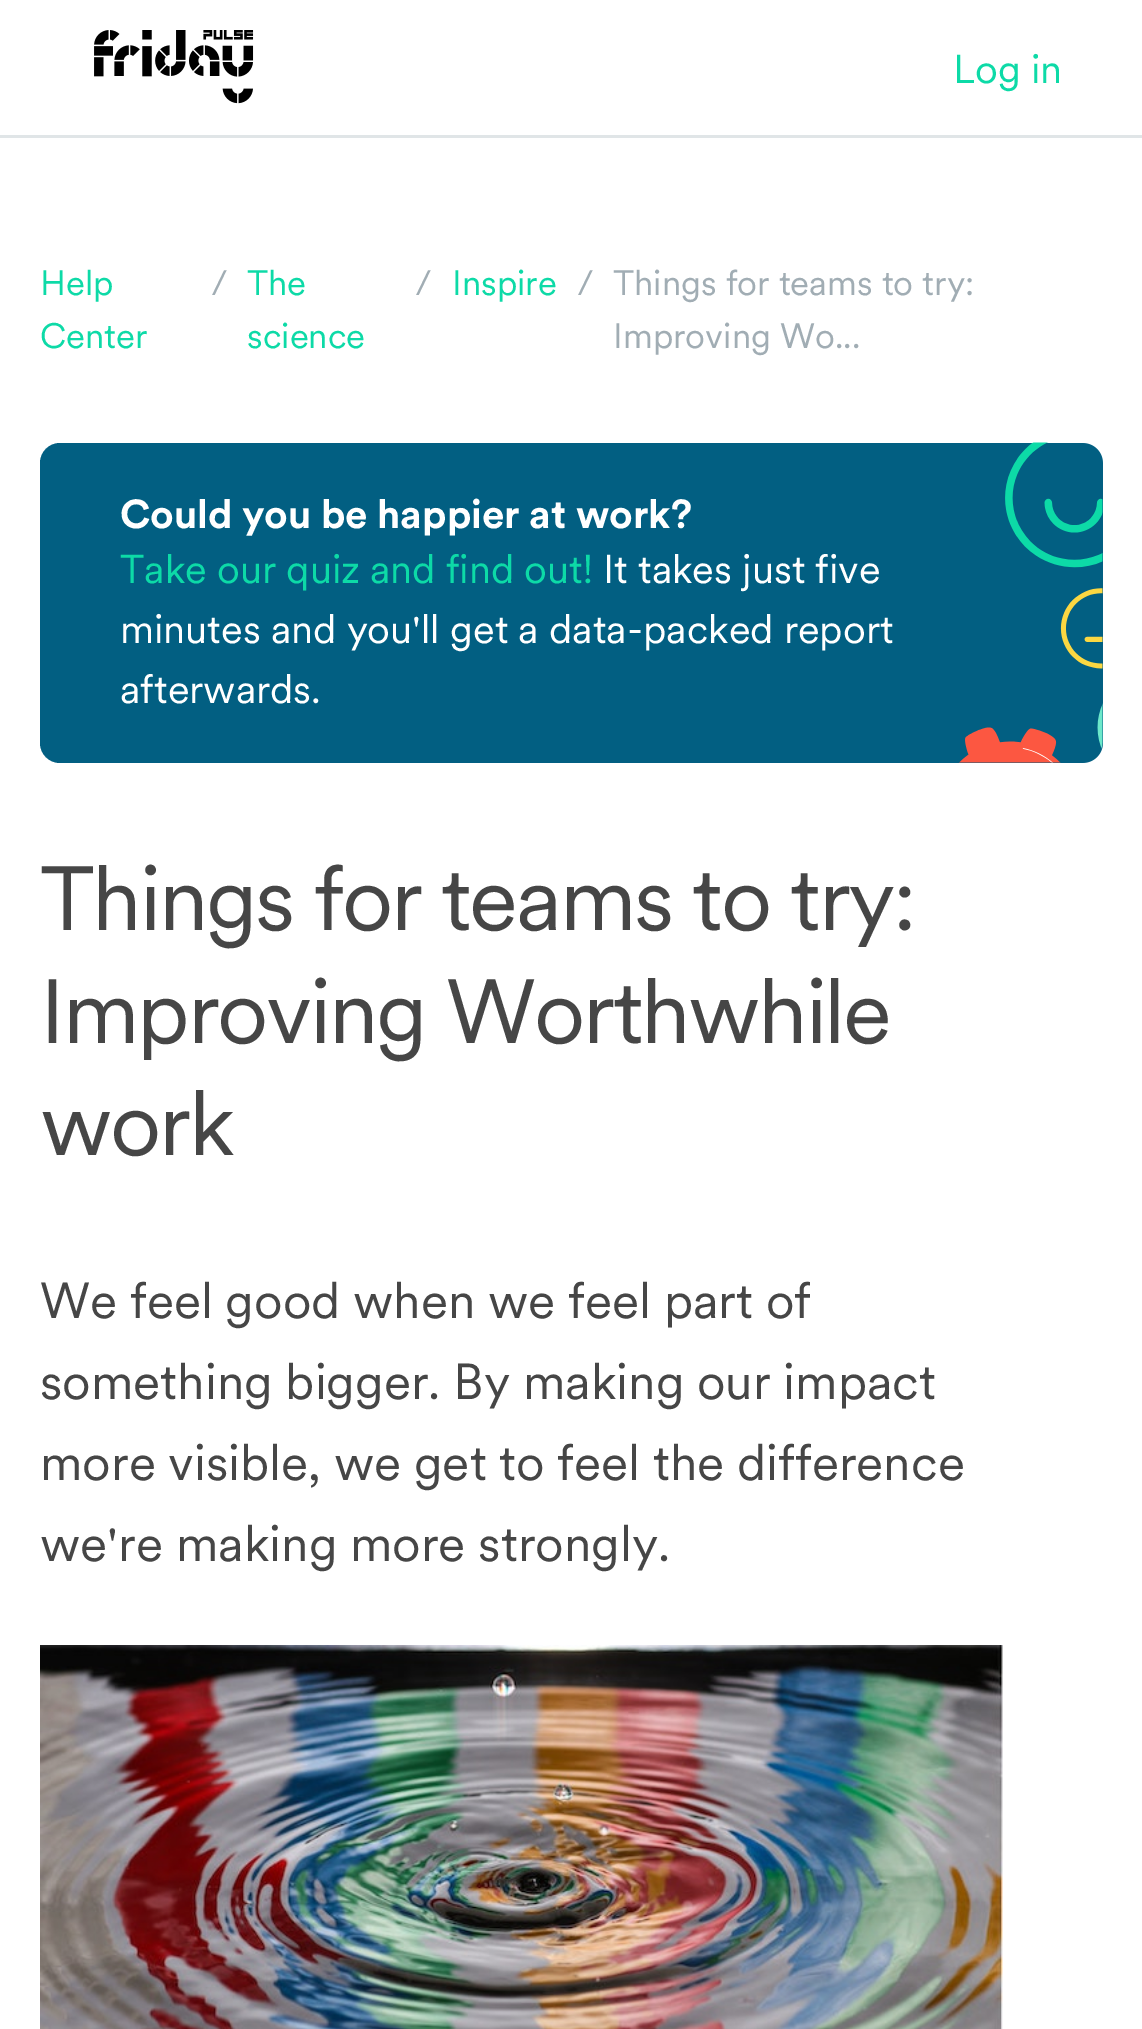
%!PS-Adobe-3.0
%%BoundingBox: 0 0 1142 2029
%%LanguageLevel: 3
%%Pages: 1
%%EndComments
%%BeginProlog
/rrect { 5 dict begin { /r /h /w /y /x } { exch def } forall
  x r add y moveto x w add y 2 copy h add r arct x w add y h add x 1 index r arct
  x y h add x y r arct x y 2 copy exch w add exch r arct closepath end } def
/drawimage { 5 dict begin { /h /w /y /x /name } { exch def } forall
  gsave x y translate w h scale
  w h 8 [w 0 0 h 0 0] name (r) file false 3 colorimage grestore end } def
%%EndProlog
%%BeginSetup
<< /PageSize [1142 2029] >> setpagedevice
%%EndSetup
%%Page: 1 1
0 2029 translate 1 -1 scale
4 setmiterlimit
1 setgray
0 0 1142 2029 rectfill
0.878 0.898 0.906 setrgbcolor
0 135 1142 3 rectfill
(images/1.raw) 94 30 160 74 drawimage
0.008 0.373 0.51 setrgbcolor
40 443 1063 320 20 rrect fill
(images/2.raw) 958 442 145 321 drawimage
(images/3.raw) 40 1645 963 384 drawimage
/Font-Regular [40 0 0 -40 0 0] selectfont
0.051 0.855 0.655 setrgbcolor
953 83 moveto (Log in) show
/Font-Regular [35 0 0 -35 0 0] selectfont
40 295 moveto (Help) show
40 348 moveto (Center) show
0.631 0.678 0.706 setrgbcolor
211 295 moveto (/) show
0.051 0.855 0.655 setrgbcolor
247 295 moveto (The) show
247 348 moveto (science) show
0.631 0.678 0.706 setrgbcolor
415 295 moveto (/) show
0.051 0.855 0.655 setrgbcolor
452 295 moveto (Inspire) show
0.631 0.678 0.706 setrgbcolor
577 295 moveto (/) show
613 295 moveto (Things for teams to try:) show
613 348 moveto (Improving Wo...) show
/Font-Bold [40 0 0 -40 0 0] selectfont
1 setgray
120 528 moveto (Could you be happier at work?) show
/Font-Regular [40 0 0 -40 0 0] selectfont
0.051 0.855 0.655 setrgbcolor
120 583 moveto (Take our quiz and find out!) show
1 setgray
603 583 moveto (It takes just five) show
120 643 moveto (minutes and you'll get a data-packed report) show
120 703 moveto (afterwards.) show
/Font-Regular [90 0 0 -90 0 0] selectfont
0.275 setgray
40 930 moveto -2.25 0 (Things for teams to try:) ashow
40 1043 moveto -2.25 0 (Improving Worthwhile) ashow
40 1155 moveto -2.25 0 (work) ashow
/Font-Regular [50 0 0 -50 0 0] selectfont
40 1318 moveto (We feel good when we feel part of) show
40 1399 moveto (something bigger. By making our impact) show
40 1480 moveto (more visible, we get to feel the difference) show
40 1561 moveto (we're making more strongly.) show
showpage
%%EOF
